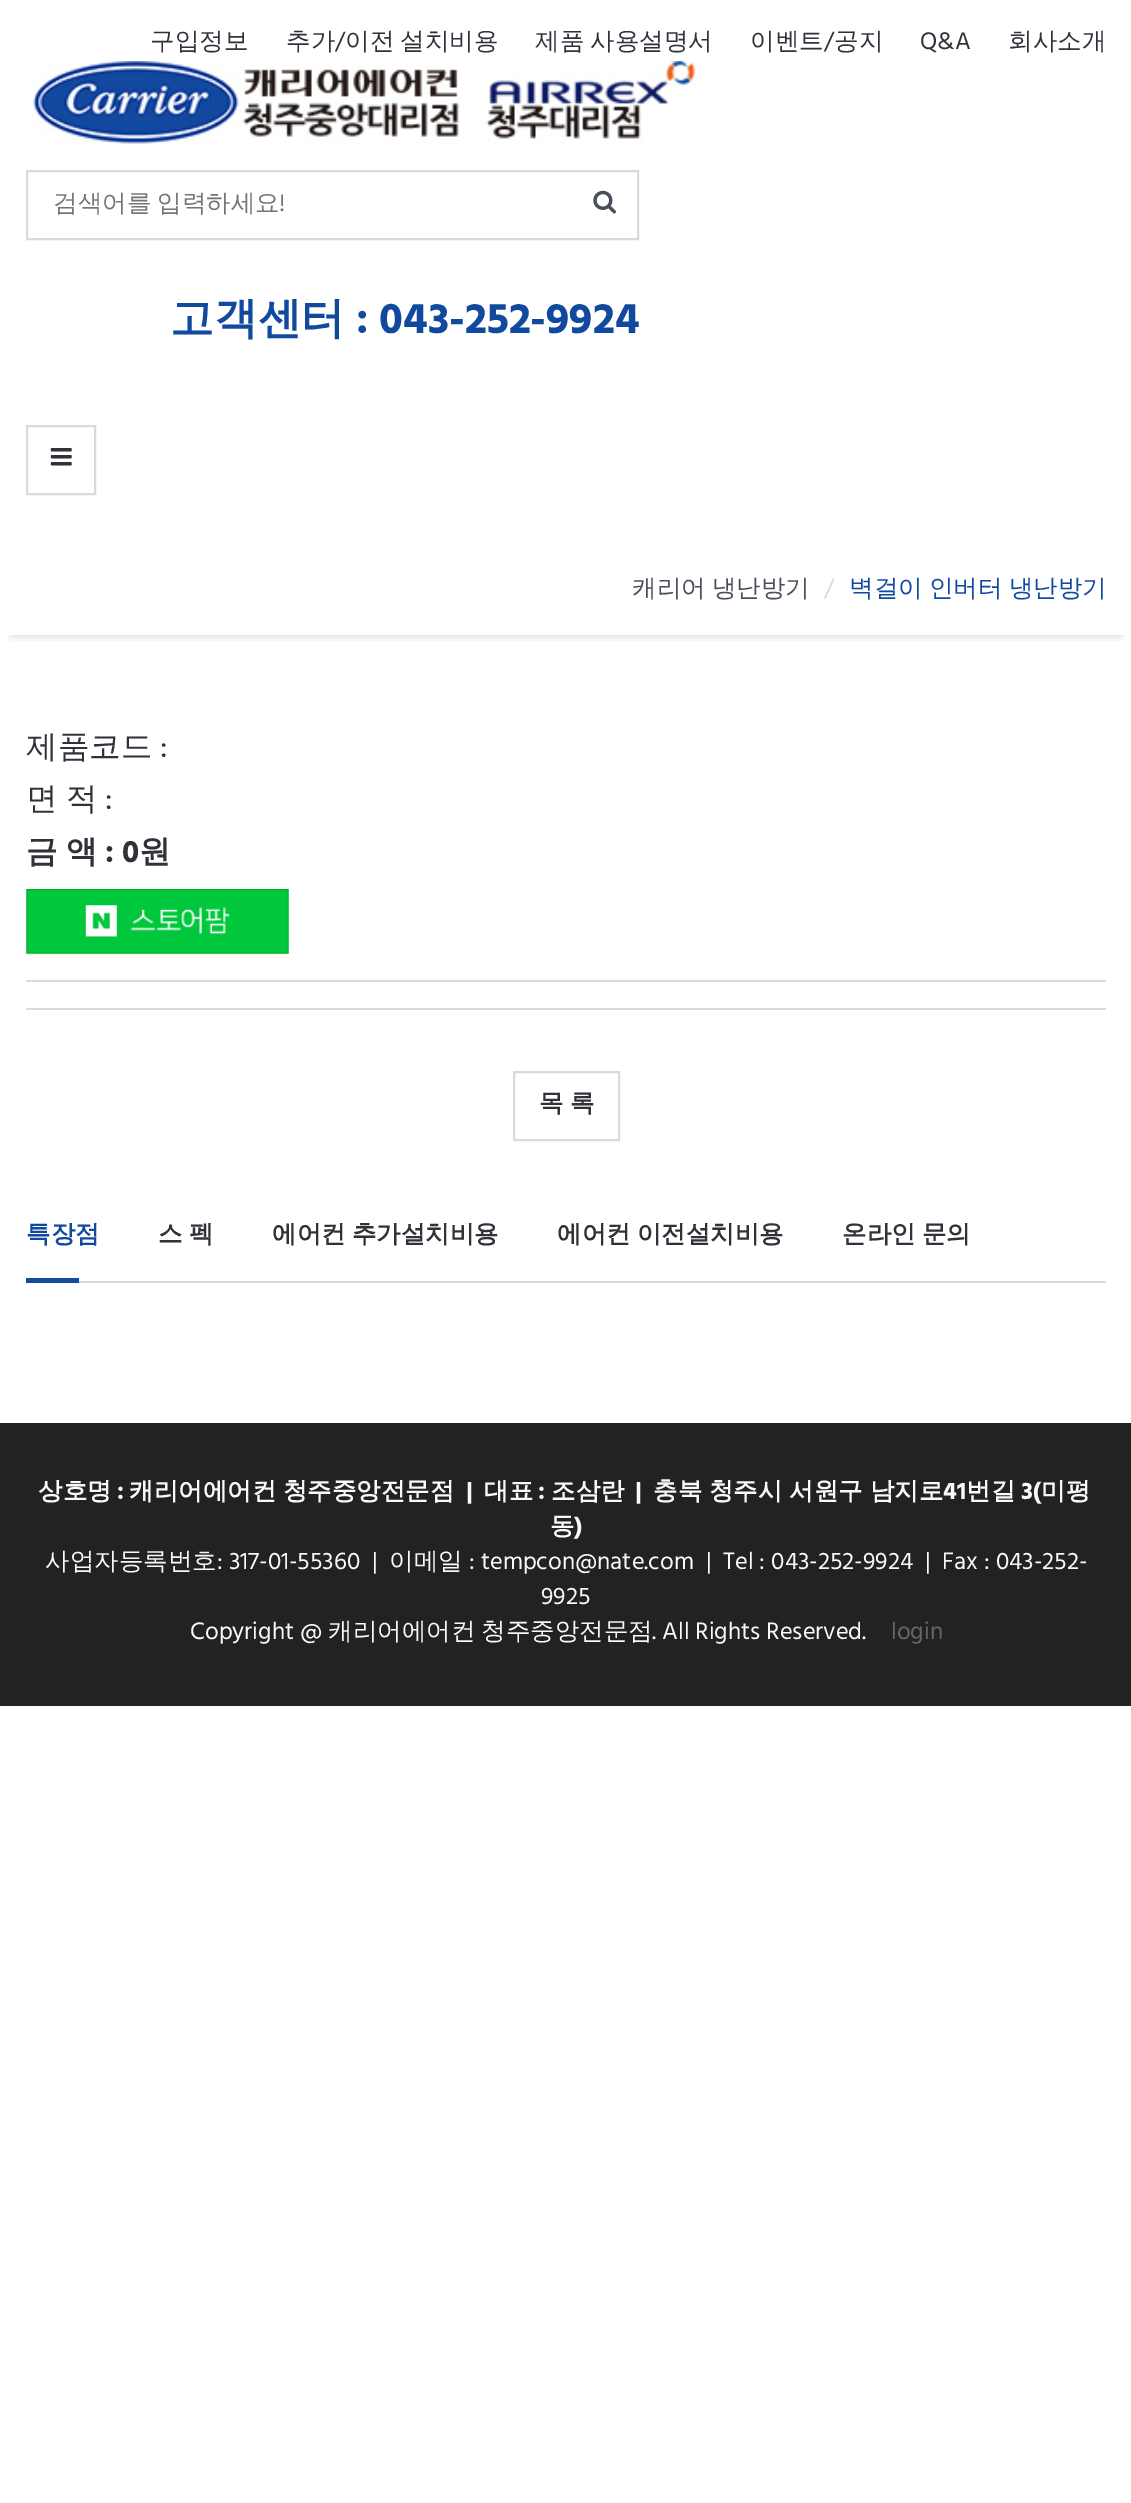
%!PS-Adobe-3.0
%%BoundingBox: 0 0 1131 2503
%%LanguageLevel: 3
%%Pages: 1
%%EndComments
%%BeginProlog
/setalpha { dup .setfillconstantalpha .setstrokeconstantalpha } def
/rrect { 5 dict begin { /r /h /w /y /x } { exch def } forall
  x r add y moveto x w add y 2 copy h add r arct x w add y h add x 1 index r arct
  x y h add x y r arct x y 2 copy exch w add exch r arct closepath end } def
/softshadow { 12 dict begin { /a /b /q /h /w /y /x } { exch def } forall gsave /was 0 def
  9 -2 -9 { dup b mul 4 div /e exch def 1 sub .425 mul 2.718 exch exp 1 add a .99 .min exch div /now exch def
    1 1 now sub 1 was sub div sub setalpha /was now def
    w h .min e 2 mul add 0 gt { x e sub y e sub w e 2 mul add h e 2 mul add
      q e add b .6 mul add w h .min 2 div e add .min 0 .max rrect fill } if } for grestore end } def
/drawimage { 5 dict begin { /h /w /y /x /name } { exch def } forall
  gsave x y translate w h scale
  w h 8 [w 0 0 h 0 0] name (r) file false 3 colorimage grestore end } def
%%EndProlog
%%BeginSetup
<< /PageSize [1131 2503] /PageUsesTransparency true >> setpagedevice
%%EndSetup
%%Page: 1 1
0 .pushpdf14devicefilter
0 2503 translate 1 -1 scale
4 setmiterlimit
1 setgray
0 0 1131 2503 rectfill
(images/1.raw) 32 61 664 83 drawimage
0.855 setgray
2 setlinewidth
27 171 611 68 rectstroke
(images/2.raw) 593 190 23 24 drawimage
27 426 68 68 rectstroke
(images/3.raw) 50 448 22 18 drawimage
gsave
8 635 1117 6 rectclip
0 setgray
11 569 1111 66 0 5 0.18 softshadow
grestore
(images/4.raw) 26 889 263 65 drawimage
26 980 1080 2 rectfill
26 1008 1080 2 rectfill
514 1072 105 68 rectstroke
79 1281 1027 2 rectfill
0.075 0.286 0.624 setrgbcolor
26 1278 53 5 rectfill
0.133 setgray
0 1423 1131 283 rectfill
/WenQuanYiZenHei-Medium [24.5 0 0 -24.5 0 0] selectfont
0.188 0.196 0.227 setrgbcolor
150 49 moveto (구입정보) show
286 49 moveto (추가) show
/Hind-Regular [24.5 0 0 -24.5 0 0] selectfont
335 49 moveto (/) show
/WenQuanYiZenHei-Medium [24.5 0 0 -24.5 0 0] selectfont
345 49 moveto -1 0 32 (이전 설치비용) widthshow
535 49 moveto -1 0 32 (제품 사용설명서) widthshow
750 49 moveto (이벤트) show
/Hind-Regular [24.5 0 0 -24.5 0 0] selectfont
824 49 moveto (/) show
/WenQuanYiZenHei-Medium [24.5 0 0 -24.5 0 0] selectfont
834 49 moveto (공지) show
/Hind-Regular [24.5 0 0 -24.5 0 0] selectfont
920 49 moveto (Q&A) show
/WenQuanYiZenHei-Medium [24.5 0 0 -24.5 0 0] selectfont
1008 49 moveto (회사소개) show
0.459 setgray
53 211 moveto -1 0 32 (검색어를 입력하세요) widthshow
/Hind-Regular [24.5 0 0 -24.5 0 0] selectfont
279 211 moveto (!) show
/WenQuanYiZenHei-Bold [43.75 0 0 -43.75 0 0] selectfont
0.067 0.286 0.62 setrgbcolor
170 333 moveto (고객센터) show
/Hind-Bold [43.75 0 0 -43.75 0 0] selectfont
356 333 moveto (: 043-252-9924) show
/WenQuanYiZenHei-Medium [24.5 0 0 -24.5 0 0] selectfont
0.29 0.306 0.353 setrgbcolor
632 596 moveto -1 0 32 (캐리어 냉난방기) widthshow
/Hind-Regular [24.5 0 0 -24.5 0 0] selectfont
0.855 setgray
824 596 moveto (/) show
/WenQuanYiZenHei-Medium [24.5 0 0 -24.5 0 0] selectfont
0.067 0.286 0.62 setrgbcolor
849 596 moveto -1 0 32 (벽걸이 인버터 냉난방기) widthshow
/WenQuanYiZenHei-Medium [31.5 0 0 -31.5 0 0] selectfont
0.188 0.196 0.227 setrgbcolor
26 757 moveto (제품코드) show
/Hind-Regular [31.5 0 0 -31.5 0 0] selectfont
160 757 moveto (:) show
/WenQuanYiZenHei-Medium [31.5 0 0 -31.5 0 0] selectfont
26 809 moveto -1 0 32 (면 적) widthshow
/Hind-Regular [31.5 0 0 -31.5 0 0] selectfont
105 809 moveto (:) show
/WenQuanYiZenHei-Bold [31.5 0 0 -31.5 0 0] selectfont
26 862 moveto (금) show
66 862 moveto (액) show
/Hind-Bold [31.5 0 0 -31.5 0 0] selectfont
105 862 moveto (: 0) show
/WenQuanYiZenHei-Bold [31.5 0 0 -31.5 0 0] selectfont
139 862 moveto (원) show
/WenQuanYiZenHei-Bold [24.5 0 0 -24.5 0 0] selectfont
539 1111 moveto -1 0 32 (목 록) widthshow
0.067 0.286 0.62 setrgbcolor
26 1242 moveto (특장점) show
0.188 0.196 0.227 setrgbcolor
158 1242 moveto -1 0 32 (스 펙) widthshow
272 1242 moveto -1 0 32 (에어컨 추가설치비용) widthshow
557 1242 moveto -1 0 32 (에어컨 이전설치비용) widthshow
842 1242 moveto -1 0 32 (온라인 문의) widthshow
0.976 setgray
38 1499 moveto (상호명) show
/Hind-Bold [24.5 0 0 -24.5 0 0] selectfont
117 1499 moveto (:) show
/WenQuanYiZenHei-Bold [24.5 0 0 -24.5 0 0] selectfont
129 1499 moveto -0.5 0 32 (캐리어에어컨 청주중앙전문점) widthshow
/Hind-Bold [24.5 0 0 -24.5 0 0] selectfont
466 1499 moveto (|) show
/WenQuanYiZenHei-Bold [24.5 0 0 -24.5 0 0] selectfont
484 1499 moveto (대표) show
/Hind-Bold [24.5 0 0 -24.5 0 0] selectfont
538 1499 moveto (:) show
/WenQuanYiZenHei-Bold [24.5 0 0 -24.5 0 0] selectfont
551 1499 moveto (조삼란) show
/Hind-Bold [24.5 0 0 -24.5 0 0] selectfont
635 1499 moveto (|) show
/WenQuanYiZenHei-Bold [24.5 0 0 -24.5 0 0] selectfont
653 1499 moveto -0.5 0 32 (충북 청주시 서원구 남지로) widthshow
/Hind-Bold [24.5 0 0 -24.5 0 0] selectfont
943 1499 moveto (41) show
/WenQuanYiZenHei-Bold [24.5 0 0 -24.5 0 0] selectfont
966 1499 moveto (번길) show
/Hind-Bold [24.5 0 0 -24.5 0 0] selectfont
1021 1499 moveto (3\() show
/WenQuanYiZenHei-Bold [24.5 0 0 -24.5 0 0] selectfont
1041 1499 moveto (미평) show
550 1534 moveto (동) show
/Hind-Bold [24.5 0 0 -24.5 0 0] selectfont
574 1534 moveto (\)) show
/WenQuanYiZenHei-Medium [24.5 0 0 -24.5 0 0] selectfont
45 1569 moveto (사업자등록번호) show
/Hind-Regular [24.5 0 0 -24.5 0 0] selectfont
217 1569 moveto (: 317-01-55360  |) show
/WenQuanYiZenHei-Medium [24.5 0 0 -24.5 0 0] selectfont
389 1569 moveto (이메일) show
/Hind-Regular [24.5 0 0 -24.5 0 0] selectfont
469 1569 moveto (: tempcon@nate.com  |  Tel : 043-252-9924  |  Fax : 043-252-) show
541 1604 moveto (9925) show
190 1639 moveto (Copyright @) show
/WenQuanYiZenHei-Medium [24.5 0 0 -24.5 0 0] selectfont
328 1639 moveto (캐리어에어컨) show
481 1639 moveto (청주중앙전문점) show
/Hind-Regular [24.5 0 0 -24.5 0 0] selectfont
652 1639 moveto (. All Rights Reserved.) show
0.4 setgray
891 1639 moveto (login) show
.poppdf14devicefilter showpage
%%EOF
